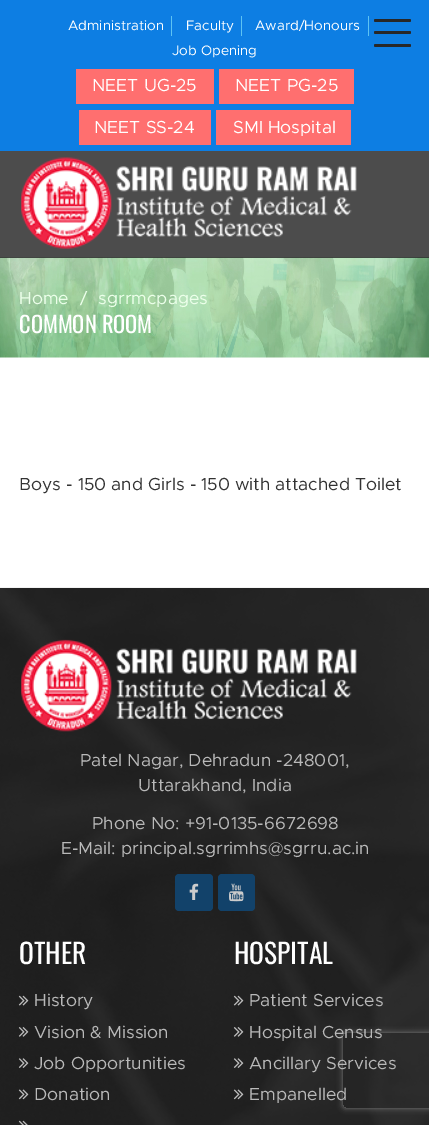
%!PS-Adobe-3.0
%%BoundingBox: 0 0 429 1125
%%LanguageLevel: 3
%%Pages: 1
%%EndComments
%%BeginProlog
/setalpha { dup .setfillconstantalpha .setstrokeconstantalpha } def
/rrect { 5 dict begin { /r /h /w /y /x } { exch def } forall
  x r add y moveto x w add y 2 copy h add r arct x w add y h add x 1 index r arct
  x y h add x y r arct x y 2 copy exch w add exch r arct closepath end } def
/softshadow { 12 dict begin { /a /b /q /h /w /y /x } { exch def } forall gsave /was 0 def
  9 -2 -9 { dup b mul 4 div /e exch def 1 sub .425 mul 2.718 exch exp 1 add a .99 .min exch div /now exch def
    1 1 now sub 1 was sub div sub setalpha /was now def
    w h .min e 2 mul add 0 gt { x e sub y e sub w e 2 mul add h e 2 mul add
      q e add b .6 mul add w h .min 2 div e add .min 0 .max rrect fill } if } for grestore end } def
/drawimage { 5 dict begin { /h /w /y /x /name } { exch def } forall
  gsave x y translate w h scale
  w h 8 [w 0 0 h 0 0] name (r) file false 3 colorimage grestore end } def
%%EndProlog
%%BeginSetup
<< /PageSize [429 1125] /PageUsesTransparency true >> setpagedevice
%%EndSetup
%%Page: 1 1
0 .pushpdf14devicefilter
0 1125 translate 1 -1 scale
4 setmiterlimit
1 setgray
0 0 429 1125 rectfill
0.051 0.494 0.89 setrgbcolor
0 0 429 151 rectfill
0.369 0.765 0.953 setrgbcolor
171 16 1 20 rectfill
241 16 1 20 rectfill
368 16 1 20 rectfill
1 0.435 0.435 setrgbcolor
76 69 138 35 rectfill
219 69 135 35 rectfill
79 110 132 35 rectfill
216 110 135 35 rectfill
(images/2.raw) 0 257 429 101 drawimage
0.7 setalpha
0 setgray
0 151 429 107 rectfill
1 setalpha
(images/1.raw) 21 157 336 92 drawimage
0.125 setgray
0 588 429 537 rectfill
(images/3.raw) 0 587 429 538 drawimage
(images/4.raw) 21 639 336 93 drawimage
0.071 0.259 0.416 setrgbcolor
175 874 38 37 4 rrect fill
(images/5.raw) 189 883 10 17 drawimage
218 874 37 37 4 rrect fill
(images/6.raw) 229 883 15 19 drawimage
(images/7.raw) 18 995 11 11 drawimage
(images/8.raw) 18 1027 11 10 drawimage
(images/9.raw) 18 1058 11 10 drawimage
(images/10.raw) 18 1089 11 11 drawimage
(images/11.raw) 18 1120 10 5 drawimage
(images/12.raw) 233 995 11 11 drawimage
(images/13.raw) 233 1027 11 10 drawimage
(images/14.raw) 233 1058 11 10 drawimage
(images/15.raw) 233 1089 11 11 drawimage
0.157 0.153 0.153 setrgbcolor
374 19 37 3 1.5 rrect fill
374 31 37 3 1.5 rrect fill
374 44 37 3 1.5 rrect fill
gsave
newpath 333 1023 moveto 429 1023 lineto 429 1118 lineto 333 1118 lineto closepath 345.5 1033 moveto 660.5 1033 lineto 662 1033 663 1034 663 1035.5 curveto 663 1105.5 lineto 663 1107 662 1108 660.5 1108 curveto 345.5 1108 lineto 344 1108 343 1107 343 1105.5 curveto 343 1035.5 lineto 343 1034 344 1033 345.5 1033 curveto closepath eoclip newpath
0.502 setgray
343 1033 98 75 2.5 3 1 softshadow
grestore
/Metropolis-Regular [13.75 0 0 -13.75 0 0] selectfont
1 setgray
68 30 moveto (Administration) show
186 30 moveto (Faculty) show
255 30 moveto (Award/Honours) show
172 55 moveto (Job Opening) show
/Metropolis-Regular [17.5 0 0 -17.5 0 0] selectfont
92 91 moveto (NEET UG-25) show
235 91 moveto (NEET PG-25) show
94 133 moveto (NEET SS-24) show
233 133 moveto (SMI Hospital) show
0.925 1 0.918 setrgbcolor
19 304 moveto (Home) show
80 304 moveto (/) show
98 304 moveto (sgrrmcpages) show
/Oswald-Regular [22.5 0 0 -22.5 0 0] selectfont
1 setgray
19 333 moveto (COMMON ROOM) show
/Metropolis-Regular [17.5 0 0 -17.5 0 0] selectfont
0.2 setgray
19 490 moveto (Boys - 150 and Girls - 150 with attached Toilet) show
0.725 setgray
80 766 moveto (Patel Nagar, Dehradun -248001,) show
138 791 moveto (Uttarakhand, India) show
92 829 moveto (Phone No: +91-0135-6672698) show
61 854 moveto (E-Mail: principal.sgrrimhs@sgrru.ac.in) show
/Oswald-Regular [27.5 0 0 -27.5 0 0] selectfont
1 setgray
19 964 moveto (OTHER) show
/Metropolis-Regular [17.5 0 0 -17.5 0 0] selectfont
0.725 setgray
34 1006 moveto (History) show
34 1038 moveto (Vision & Mission) show
34 1069 moveto (Job Opportunities) show
34 1100 moveto (Donation) show
/Oswald-Regular [27.5 0 0 -27.5 0 0] selectfont
1 setgray
234 964 moveto (HOSPITAL) show
/Metropolis-Regular [17.5 0 0 -17.5 0 0] selectfont
0.725 setgray
249 1006 moveto (Patient Services) show
249 1038 moveto (Hospital Census) show
249 1069 moveto (Ancillary Services) show
249 1100 moveto (Empanelled) show
.poppdf14devicefilter showpage
%%EOF
